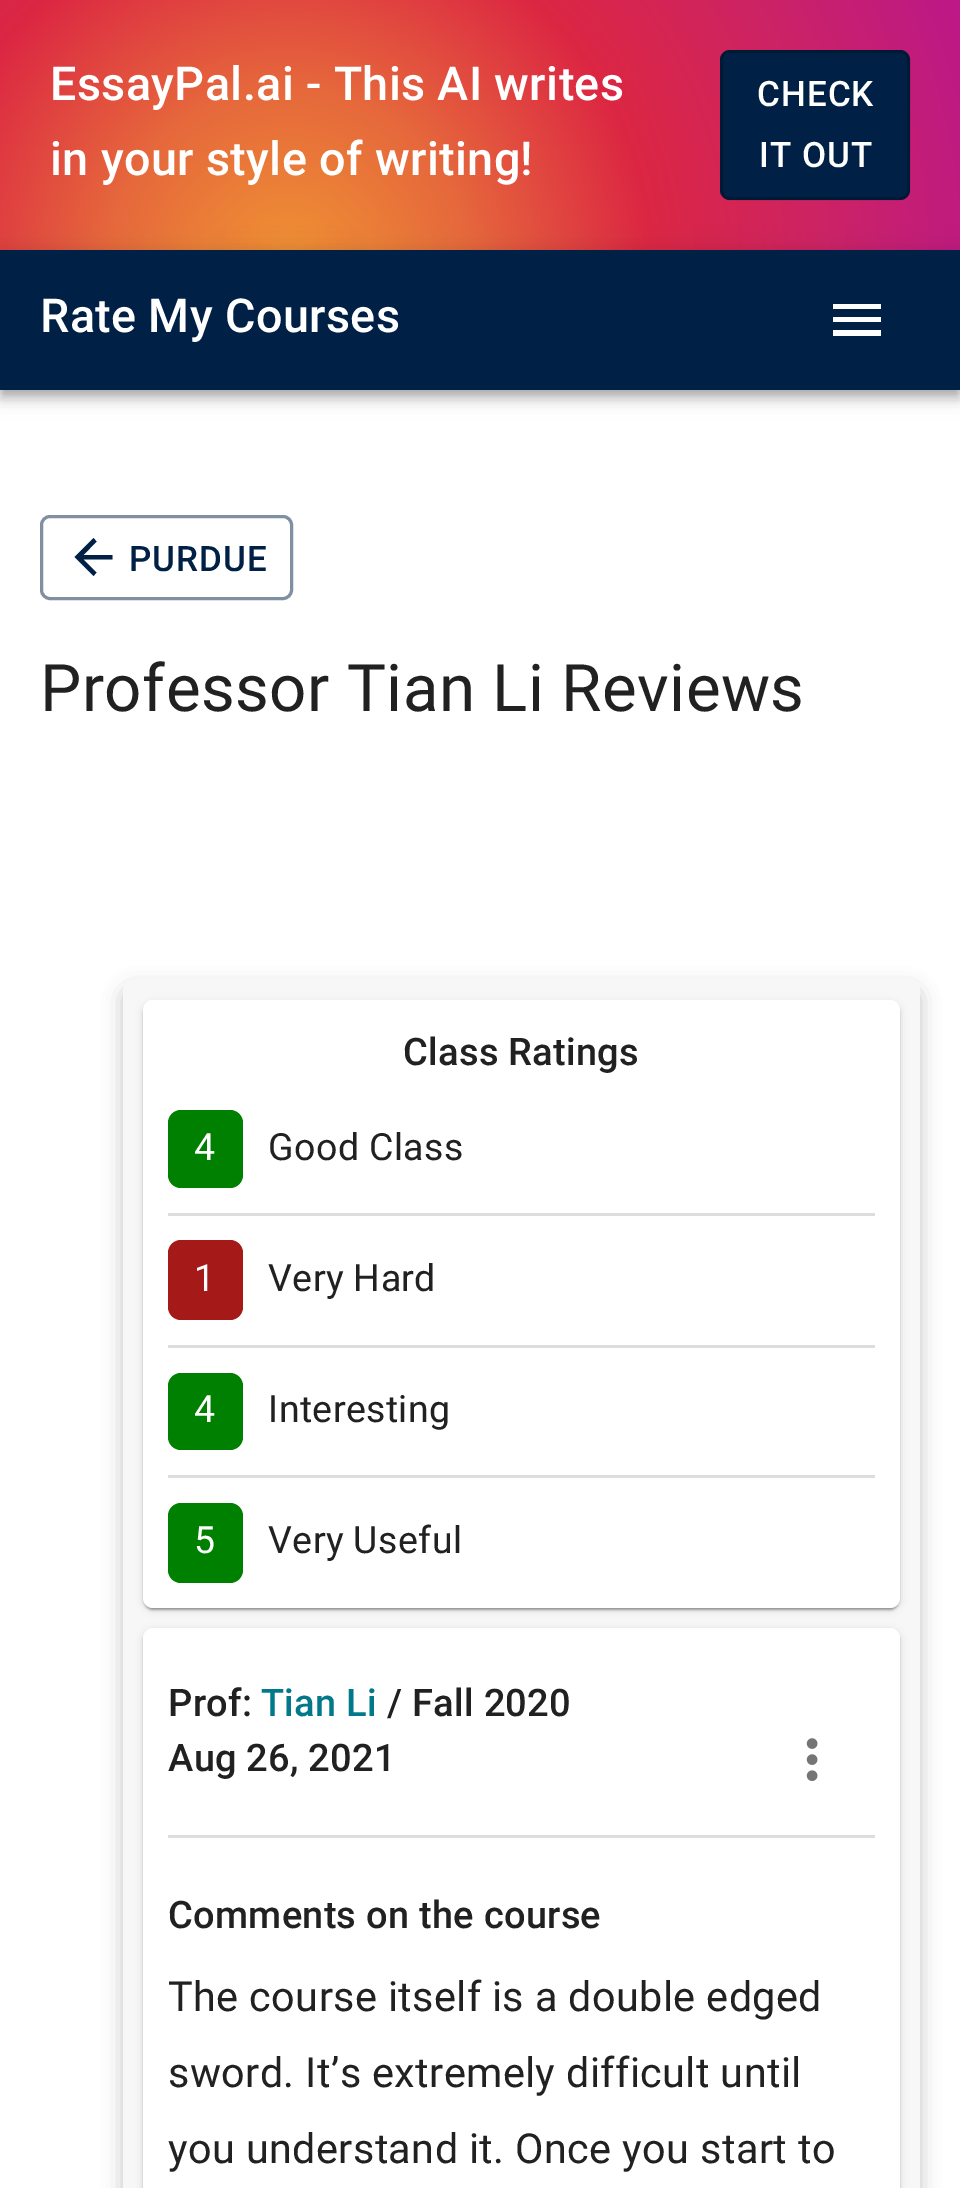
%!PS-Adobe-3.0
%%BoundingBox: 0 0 960 2188
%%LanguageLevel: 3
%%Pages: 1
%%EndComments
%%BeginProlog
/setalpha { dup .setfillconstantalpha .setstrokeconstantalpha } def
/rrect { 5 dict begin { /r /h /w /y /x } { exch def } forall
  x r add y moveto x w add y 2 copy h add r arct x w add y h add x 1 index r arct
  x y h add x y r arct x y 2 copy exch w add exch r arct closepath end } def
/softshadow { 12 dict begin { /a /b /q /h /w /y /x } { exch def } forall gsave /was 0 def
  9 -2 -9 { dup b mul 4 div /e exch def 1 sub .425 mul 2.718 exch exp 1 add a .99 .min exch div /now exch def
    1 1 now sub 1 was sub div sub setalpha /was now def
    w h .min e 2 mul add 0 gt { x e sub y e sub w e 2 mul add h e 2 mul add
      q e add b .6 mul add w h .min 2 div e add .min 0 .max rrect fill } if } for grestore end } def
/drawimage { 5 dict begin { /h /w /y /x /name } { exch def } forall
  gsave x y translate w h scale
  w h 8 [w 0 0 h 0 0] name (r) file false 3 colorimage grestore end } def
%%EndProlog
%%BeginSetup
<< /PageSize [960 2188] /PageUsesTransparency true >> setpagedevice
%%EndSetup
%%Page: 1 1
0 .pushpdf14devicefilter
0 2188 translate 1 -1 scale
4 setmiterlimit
1 setgray
0 0 960 2188 rectfill
gsave newpath 0 0 moveto 960 0 lineto 960 250 lineto 0 250 lineto closepath clip newpath 288 268 translate 723 723 scale
<< /ShadingType 3 /ColorSpace /DeviceRGB /Coords [0 0 0 0 0 1] /Extend [true true] /Function << /FunctionType 3 /Domain [0 1] /Functions [<< /FunctionType 2 /Domain [0 1] /C0 [0.941 0.58 0.2] /C1 [0.902 0.408 0.235] /N 1 >> << /FunctionType 2 /Domain [0 1] /C0 [0.902 0.408 0.235] /C1 [0.863 0.153 0.263] /N 1 >> << /FunctionType 2 /Domain [0 1] /C0 [0.863 0.153 0.263] /C1 [0.8 0.137 0.4] /N 1 >> << /FunctionType 2 /Domain [0 1] /C0 [0.8 0.137 0.4] /C1 [0.737 0.094 0.533] /N 1 >>] /Bounds [0.25 0.5 0.75] /Encode [0 1 0 1 0 1 0 1] >> >> shfill grestore
0 0.129 0.271 setrgbcolor
720 50 190 150 10 rrect fill
0.23 setalpha
0 setgray
3 setlinewidth
721.5 51.5 187 147 8.5 rrect stroke
1 setalpha
0 253 960 140 0 12.5 0.12 softshadow
0 260 960 140 0 6 0.14 softshadow
3 258 955 135 0 5 0.2 softshadow
0 0.129 0.271 setrgbcolor
0 250 960 140 rectfill
1 setgray
newpath 833 336 moveto 881 336 lineto 881 330 lineto 833 330 lineto closepath 833 322 moveto 881 322 lineto 881 317 lineto 833 317 lineto closepath 833 304 moveto 833 309 lineto 881 309 lineto 881 304 lineto closepath fill
0.502 0.565 0.635 setrgbcolor
41.5 516.5 250 82 8.5 rrect stroke
0 0.129 0.271 setrgbcolor
newpath 112.5 555 moveto 83.5 555 lineto 96.5 541.5 lineto 93.5 538 lineto 74.5 557 lineto 93.5 576 lineto 96.5 572.5 lineto 83.5 559.5 lineto 112.5 559.5 lineto closepath fill
0 setgray
123 988 797 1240 10 10 0.24 softshadow
0.969 setgray
123 980 797 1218 10 rrect fill
0 setgray
143 1003 757 607 10 4 0.12 softshadow
143 1003 757 607 10 1 0.14 softshadow
145 1008 753 602 8 1 0.2 softshadow
1 setgray
143 1000 757 608 10 rrect fill
0.867 setgray
168 1213 707 3 rectfill
0 0.502 0 setrgbcolor
168 1110 75 78 13 rrect fill
0.867 setgray
168 1345 707 3 rectfill
0.651 0.098 0.098 setrgbcolor
168 1240 75 80 13 rrect fill
0.867 setgray
168 1475 707 3 rectfill
0 0.502 0 setrgbcolor
168 1373 75 77 13 rrect fill
168 1503 75 80 13 rrect fill
0 setgray
143 1630 757 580 10 4 0.12 softshadow
143 1630 757 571 10 1 0.14 softshadow
1 setgray
143 1628 757 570 10 rrect fill
0.867 setgray
168 1835 707 3 rectfill
(images/1.raw) 806 1738 12 43 drawimage
/Roboto-Medium [46.75 0 0 -46.75 0 0] selectfont
1 setgray
50 100 moveto 0.35 0 (EssayPal.ai - This AI writes) ashow
50 175 moveto 0.35 0 (in your style of writing!) ashow
/Roboto-Medium [35 0 0 -35 0 0] selectfont
757 106 moveto 1 0 (CHECK) ashow
759 167 moveto 1 0 (IT OUT) ashow
/Roboto-Medium [46.75 0 0 -46.75 0 0] selectfont
40 332 moveto 0.35 0 (Rate My Courses) ashow
/Roboto-Medium [35 0 0 -35 0 0] selectfont
0 0.129 0.271 setrgbcolor
129 571 moveto 1 0 (PURDUE) ashow
/Roboto-Regular [65.5 0 0 -65.5 0 0] selectfont
0.129 setgray
40 711 moveto 0.5 0 (Professor Tian Li Reviews) ashow
/Roboto-Medium [38 0 0 -38 0 0] selectfont
403 1065 moveto 0.25 0 (Class Ratings) ashow
/Roboto-Regular [37.5 0 0 -37.5 0 0] selectfont
1 setgray
194 1160 moveto 0.4 0 (4) ashow
0.129 setgray
268 1160 moveto 0.4 0 (Good Class) ashow
1 setgray
194 1291 moveto 0.4 0 (1) ashow
0.129 setgray
268 1291 moveto 0.4 0 (Very Hard) ashow
1 setgray
194 1422 moveto 0.4 0 (4) ashow
0.129 setgray
268 1422 moveto 0.4 0 (Interesting) ashow
1 setgray
194 1553 moveto 0.4 0 (5) ashow
0.129 setgray
268 1553 moveto 0.4 0 (Very Useful) ashow
/Roboto-Medium [38 0 0 -38 0 0] selectfont
168 1716 moveto 0.25 0 (Prof:) ashow
0.008 0.475 0.545 setrgbcolor
261 1716 moveto 0.25 0 (Tian Li) ashow
0.129 setgray
387 1716 moveto 0.25 0 (/ Fall 2020) ashow
168 1771 moveto 0.25 0 (Aug 26, 2021) ashow
168 1928 moveto 0.25 0 (Comments on the course) ashow
/Roboto-Regular [41.4 0 0 -41.4 0 0] selectfont
168 2011 moveto 0.4 0 (The course itself is a double edged) ashow
168 2087 moveto 0.4 0 (sword. It’s extremely difficult until) ashow
168 2163 moveto 0.4 0 (you understand it. Once you start to) ashow
.poppdf14devicefilter showpage
%%EOF
